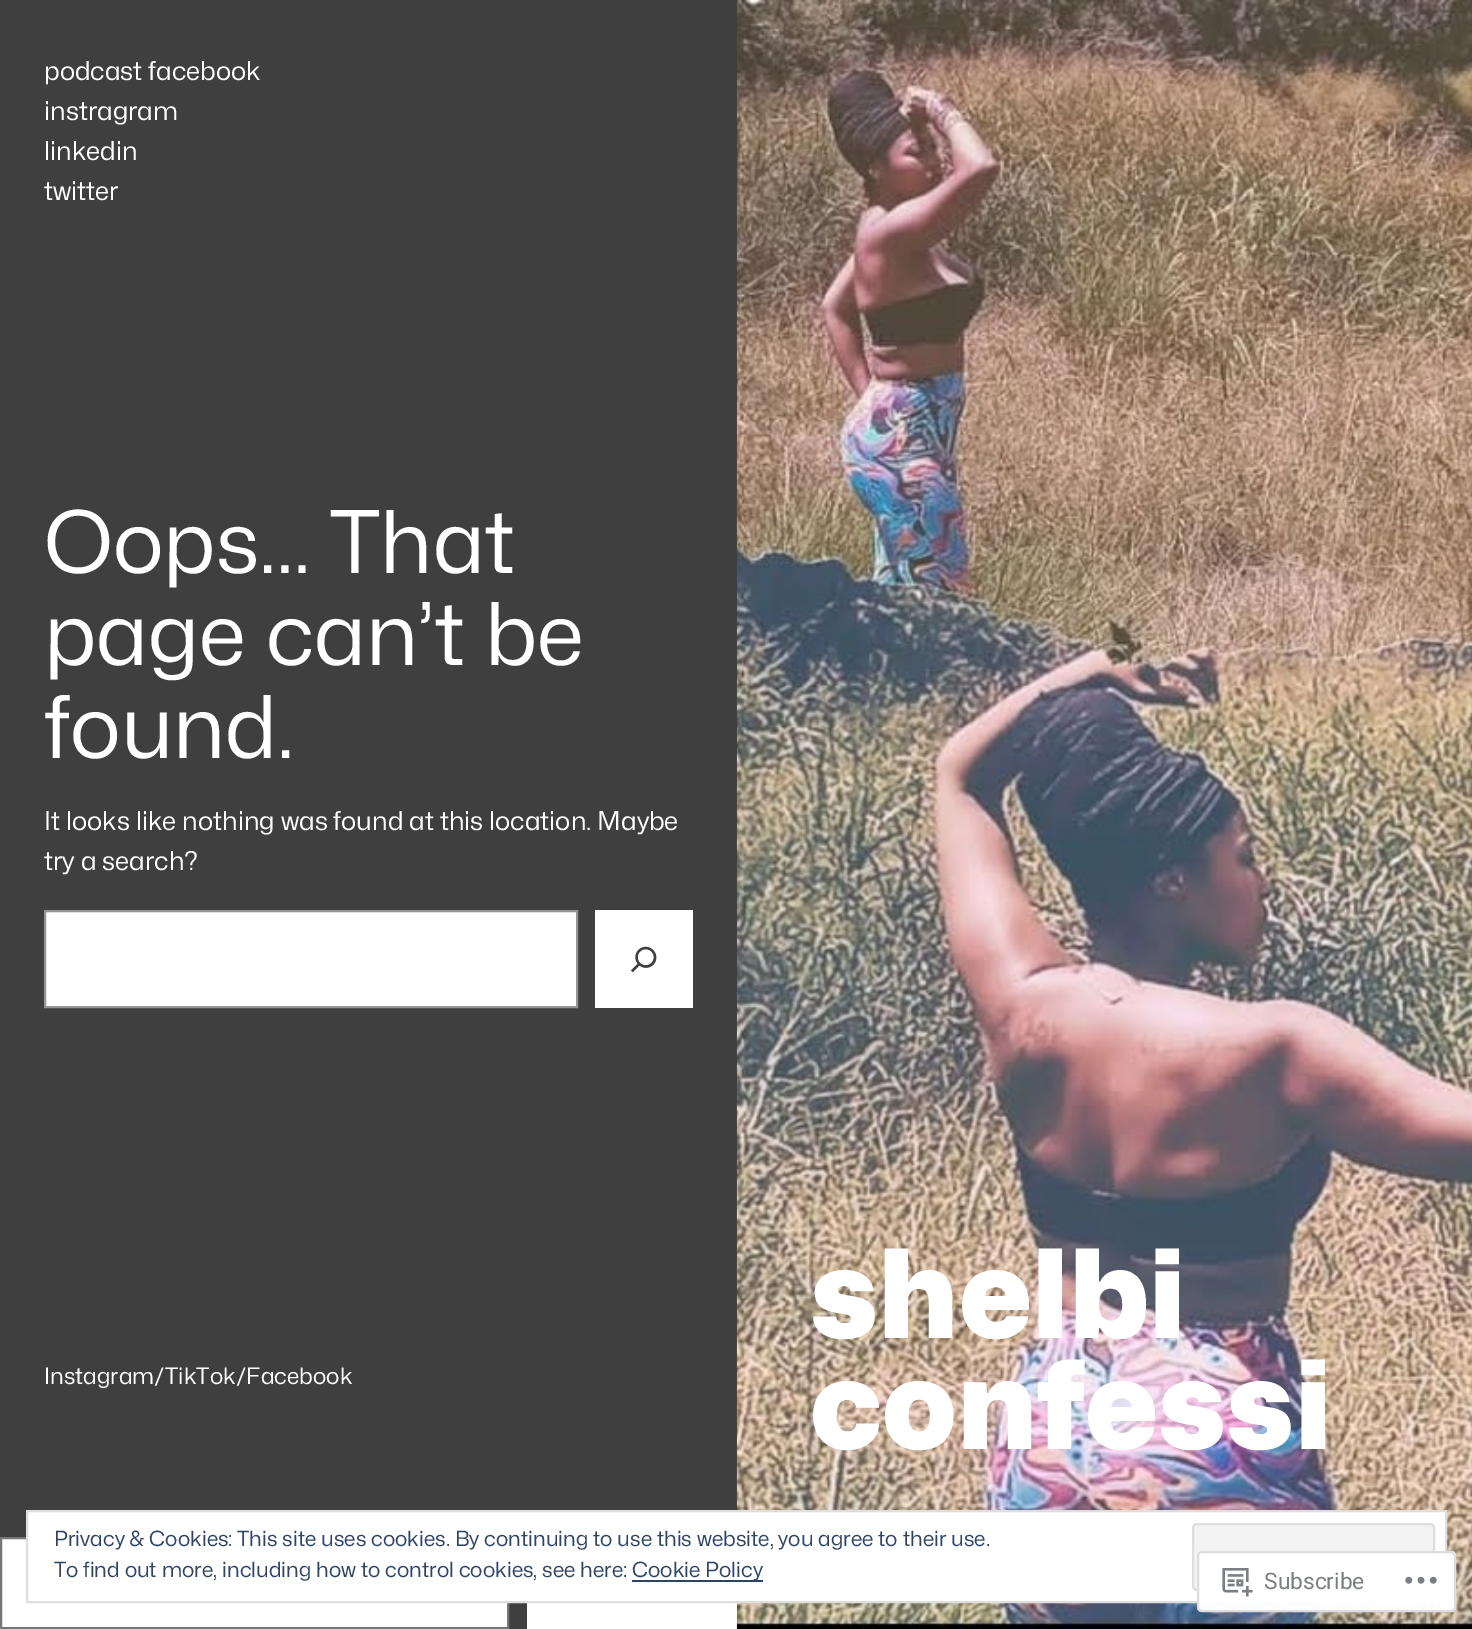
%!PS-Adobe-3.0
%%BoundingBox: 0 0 1472 1629
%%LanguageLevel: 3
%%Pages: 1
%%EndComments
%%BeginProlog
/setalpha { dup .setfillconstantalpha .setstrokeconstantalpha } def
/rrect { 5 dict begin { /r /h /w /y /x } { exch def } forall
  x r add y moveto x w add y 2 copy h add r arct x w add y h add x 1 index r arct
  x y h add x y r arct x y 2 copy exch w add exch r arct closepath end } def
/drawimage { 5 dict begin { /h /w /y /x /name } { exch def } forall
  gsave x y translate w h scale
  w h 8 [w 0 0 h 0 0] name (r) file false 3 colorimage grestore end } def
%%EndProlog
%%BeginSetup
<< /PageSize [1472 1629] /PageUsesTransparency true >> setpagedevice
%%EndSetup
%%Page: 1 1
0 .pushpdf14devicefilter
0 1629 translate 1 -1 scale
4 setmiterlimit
0.247 setgray
0 0 1472 1629 rectfill
1 setgray
newpath 45 911 moveto 577 911 lineto 577 1007 lineto 45 1007 lineto closepath gsave fill grestore
0.58 setgray
2 setlinewidth
stroke
1 setgray
595 910 98 98 rectfill
(images/1.raw) 631 946 26 27 drawimage
newpath 1 1538 moveto 508 1538 lineto 508 1628 lineto 1 1628 lineto closepath gsave fill grestore
0.463 setgray
stroke
1 setgray
527 1603 210 26 rectfill
(images/2.raw) 736 0 736 1629 drawimage
newpath 27 1511 moveto 1446 1511 lineto 1446 1602 lineto 27 1602 lineto closepath gsave fill grestore
0.871 setgray
stroke
0.953 setgray
1193 1524 241 66 4 rrect gsave fill grestore
0.871 setgray
stroke
0.18 0.267 0.404 setrgbcolor
632 1580 131 2 rectfill
0.98 setalpha
1 setgray
1197 1551 259 61 5 rrect fill
0.863 0.863 0.871 setrgbcolor
1198 1552 257 59 4 rrect stroke
1 setalpha
(images/3.raw) 1222 1568 31 29 drawimage
(images/4.raw) 1405 1576 32 8 drawimage
/MonaSans-Regular [25.9 0 0 -25.9 0 0] selectfont
1 setgray
44 80 moveto (podcast facebook) show
44 120 moveto (instragram) show
44 160 moveto (linkedin) show
44 200 moveto (twitter) show
/MonaSans-Regular [86.5 0 0 -86.5 0 0] selectfont
44 573 moveto (Oops… That) show
44 665 moveto (page can’t be) show
44 758 moveto (found.) show
/MonaSans-Regular [25.9 0 0 -25.9 0 0] selectfont
44 830 moveto (It looks like nothing was found at this location. Maybe) show
44 870 moveto (try a search?) show
/MonaSans-Regular [22.75 0 0 -22.75 0 0] selectfont
44 1384 moveto (Instagram/TikTok/Facebook) show
/MonaSans-Black [123 0 0 -123 0 0] selectfont
810 1338 moveto (shelbi) show
810 1449 moveto (confessi) show
/MonaSans-Regular [21 0 0 -21 0 0] selectfont
0.18 0.267 0.404 setrgbcolor
54 1546 moveto (Privacy & Cookies: This site uses cookies. By continuing to use this website, you agree to their use.) show
54 1577 moveto (To find out more, including how to control cookies, see here:) show
632 1577 moveto (Cookie Policy) show
/Roboto-Regular [22.75 0 0 -22.75 0 0] selectfont
0.482 0.498 0.518 setrgbcolor
1264 1589 moveto (Subscribe) show
.poppdf14devicefilter showpage
%%EOF
